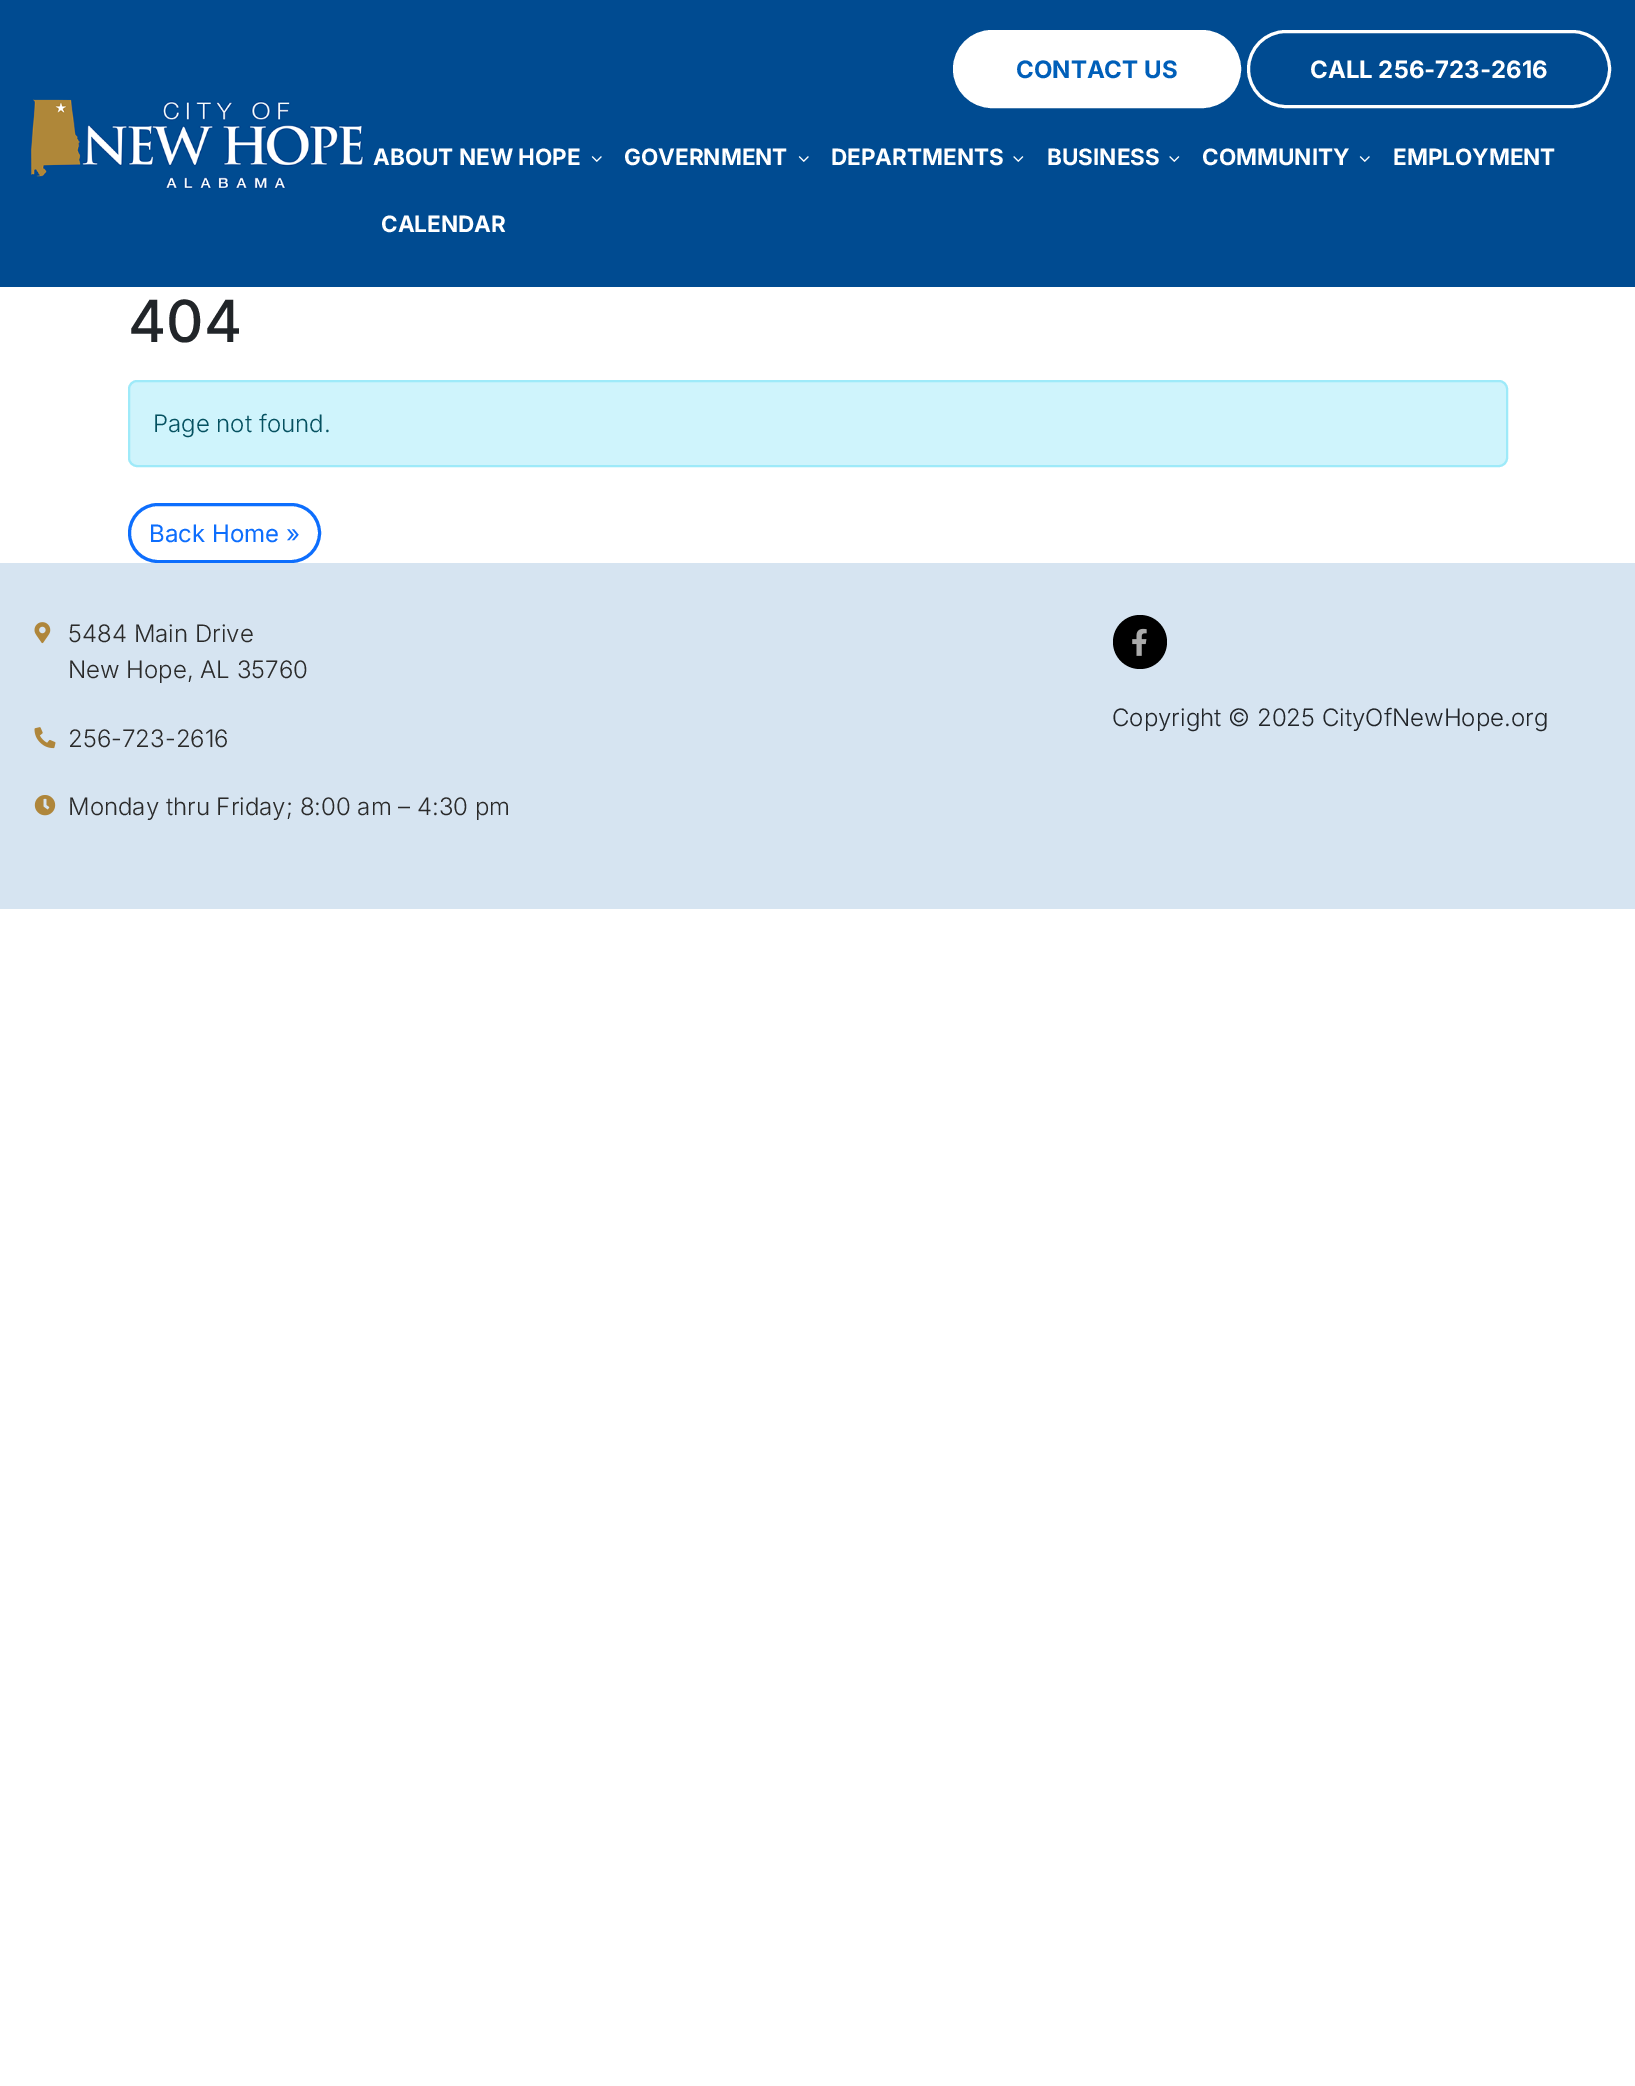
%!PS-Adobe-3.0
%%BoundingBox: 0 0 1635 2086
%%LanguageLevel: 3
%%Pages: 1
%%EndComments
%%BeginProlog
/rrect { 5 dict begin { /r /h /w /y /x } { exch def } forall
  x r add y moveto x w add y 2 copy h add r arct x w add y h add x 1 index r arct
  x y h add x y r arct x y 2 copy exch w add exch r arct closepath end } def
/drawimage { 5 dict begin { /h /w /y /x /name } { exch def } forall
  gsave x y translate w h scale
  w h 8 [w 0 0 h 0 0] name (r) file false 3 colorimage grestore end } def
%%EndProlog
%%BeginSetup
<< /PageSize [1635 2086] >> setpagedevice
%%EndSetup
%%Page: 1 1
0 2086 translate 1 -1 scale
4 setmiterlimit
1 setgray
0 0 1635 2086 rectfill
0 0.294 0.569 setrgbcolor
0 0 1635 287 rectfill
(images/1.raw) 30 99 334 90 drawimage
1 setgray
954.5 31.5 285 75 37.5 rrect gsave fill grestore
3 setlinewidth
stroke
1248.5 31.5 361 75 37.5 rrect stroke
(images/2.raw) 591 156 11 6 drawimage
(images/2.raw) 798 156 11 6 drawimage
(images/3.raw) 1013 156 11 6 drawimage
(images/3.raw) 1169 156 11 6 drawimage
(images/2.raw) 1359 156 11 6 drawimage
0.812 0.957 0.988 setrgbcolor
129 381 1378 85 8 rrect gsave fill grestore
0.62 0.918 0.976 setrgbcolor
2 setlinewidth
stroke
0.051 0.431 0.992 setrgbcolor
3 setlinewidth
129.5 504.5 190 57 28.5 rrect stroke
0.839 0.894 0.945 setrgbcolor
0 563 1635 346 rectfill
(images/4.raw) 34 622 17 22 drawimage
(images/5.raw) 34 727 22 22 drawimage
(images/6.raw) 34 795 22 21 drawimage
0 setgray
newpath 1140 642 27 0 360 arc closepath fill
(images/7.raw) 1132 628 15 28 drawimage
/Inter-Bold [24 0 0 -24 0 0] selectfont
0 0.373 0.725 setrgbcolor
1016 78 moveto (CONTACT US) show
1 setgray
1310 78 moveto (CALL 256-723-2616) show
/Inter-Bold [22.5 0 0 -22.5 0 0] selectfont
373 165 moveto (ABOUT NEW HOPE) show
624 165 moveto (GOVERNMENT) show
831 165 moveto (DEPARTMENTS) show
1047 165 moveto (BUSINESS) show
1202 165 moveto (COMMUNITY) show
1393 165 moveto (EMPLOYMENT) show
381 232 moveto (CALENDAR) show
/Inter-Medium [58 0 0 -58 0 0] selectfont
0.129 0.145 0.161 setrgbcolor
128 342 moveto (404) show
/Inter-Light [24 0 0 -24 0 0] selectfont
0.02 0.318 0.376 setrgbcolor
153 432 moveto (Page not found.) show
/Inter-Regular [24 0 0 -24 0 0] selectfont
0.051 0.431 0.992 setrgbcolor
149 542 moveto (Back Home ») show
/Inter-Light [24 0 0 -24 0 0] selectfont
0.165 setgray
68 642 moveto (5484 Main Drive) show
68 678 moveto (New Hope, AL 35760) show
68 747 moveto (256-723-2616) show
68 815 moveto (Monday thru Friday; 8:00 am – 4:30 pm) show
0.129 0.145 0.161 setrgbcolor
1112 726 moveto (Copyright © 2025 CityOfNewHope.org) show
showpage
%%EOF
